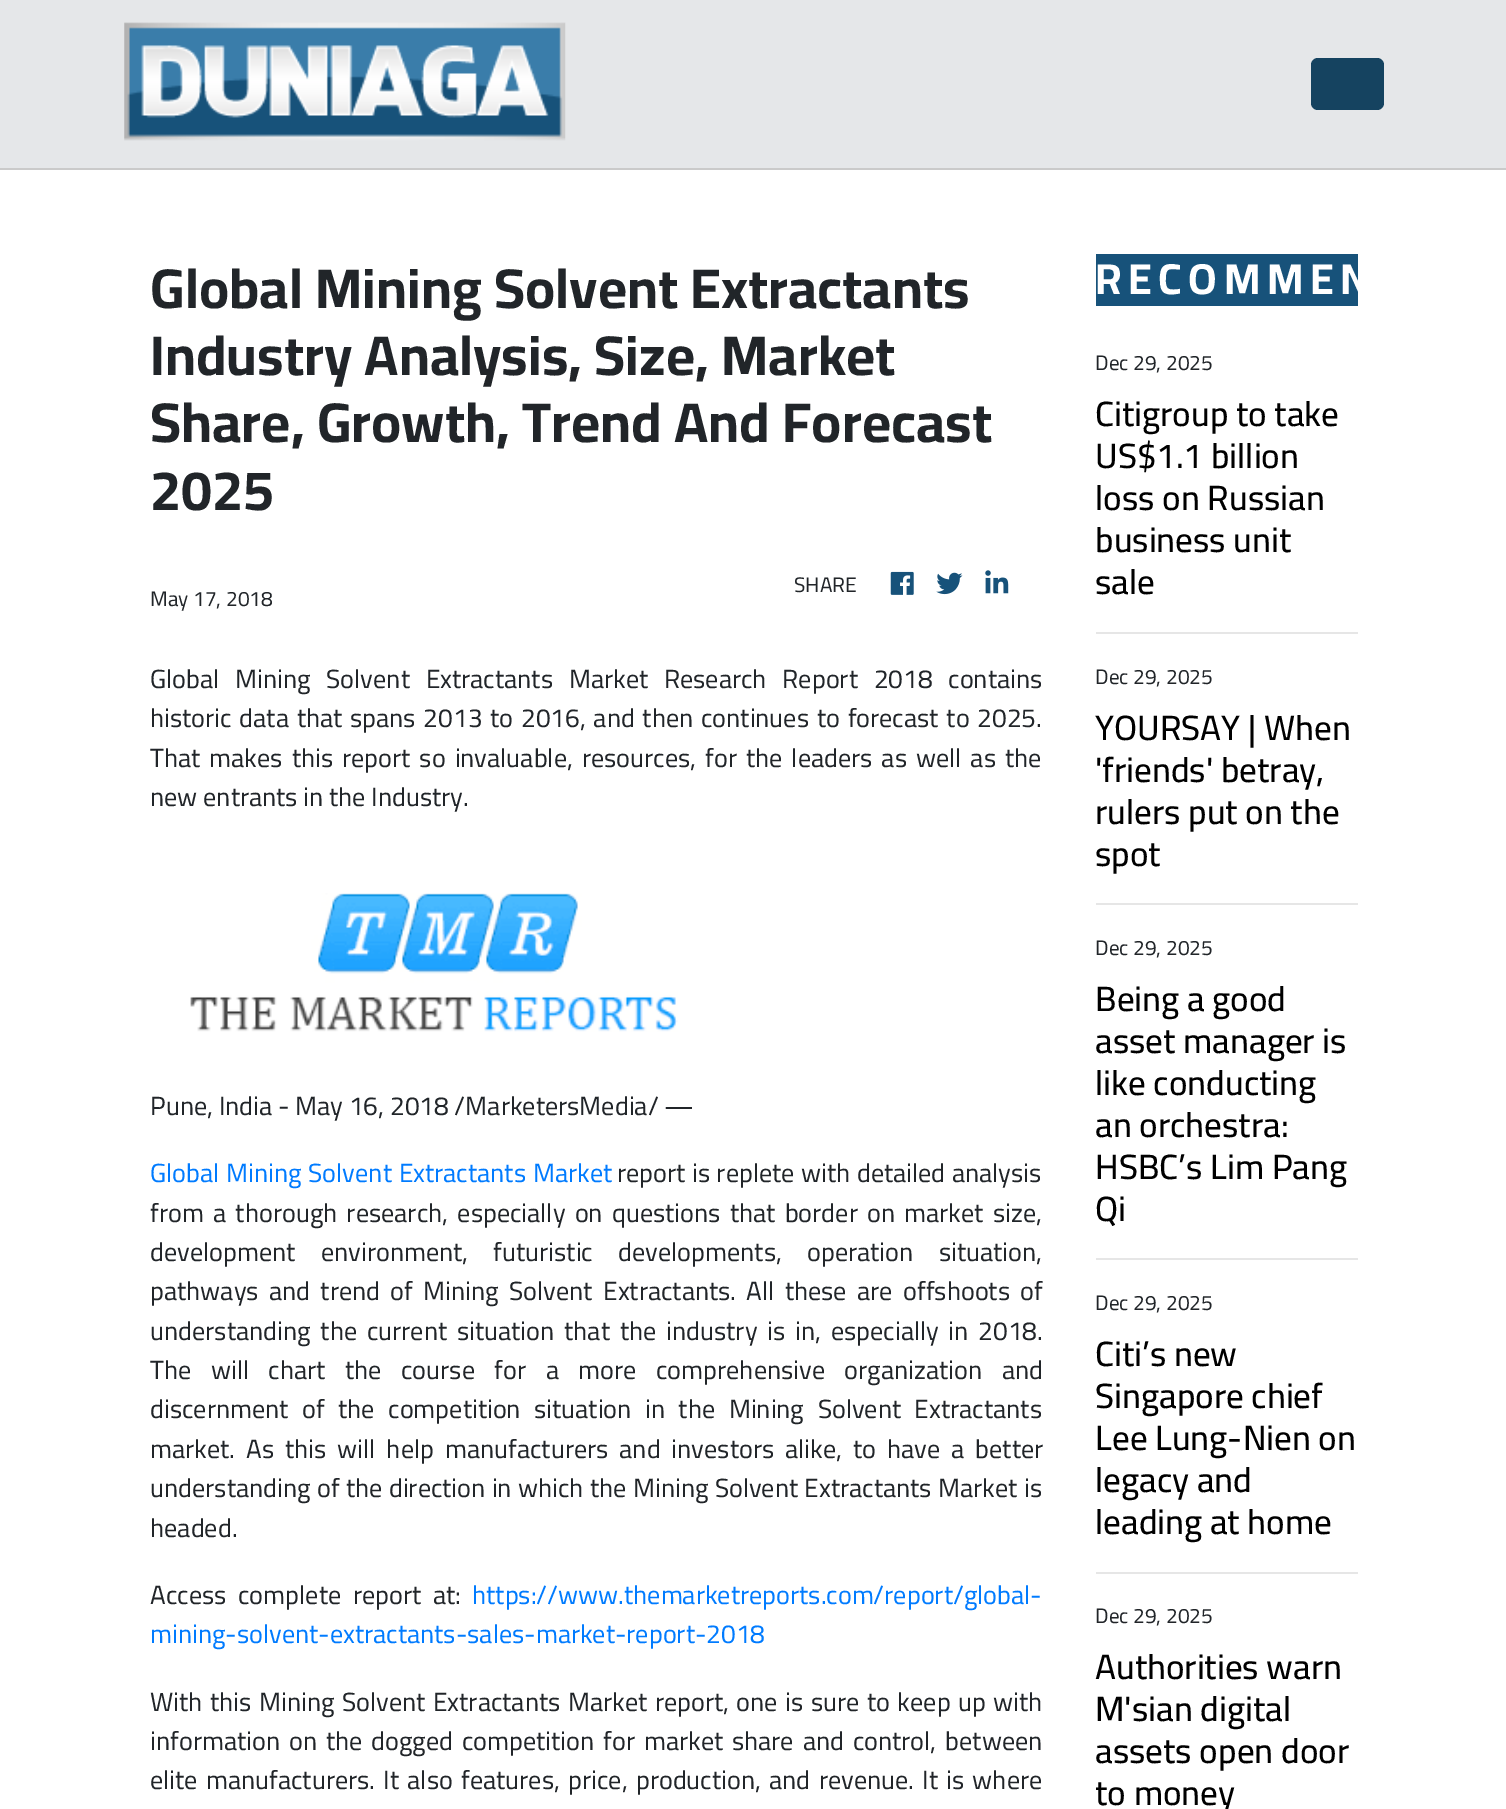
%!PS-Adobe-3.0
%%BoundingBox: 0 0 1506 1809
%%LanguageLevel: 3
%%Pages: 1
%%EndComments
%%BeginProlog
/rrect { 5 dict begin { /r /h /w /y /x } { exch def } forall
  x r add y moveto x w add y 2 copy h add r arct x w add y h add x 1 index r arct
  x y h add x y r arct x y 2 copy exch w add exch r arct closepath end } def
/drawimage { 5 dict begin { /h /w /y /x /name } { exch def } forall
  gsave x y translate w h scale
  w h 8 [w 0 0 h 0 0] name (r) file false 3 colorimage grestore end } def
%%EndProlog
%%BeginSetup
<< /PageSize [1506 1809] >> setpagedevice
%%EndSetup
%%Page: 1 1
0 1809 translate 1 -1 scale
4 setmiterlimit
1 setgray
0 0 1506 1809 rectfill
0.898 0.906 0.914 setrgbcolor
0 0 1506 168 rectfill
0.792 setgray
0 168 1506 2 rectfill
(images/1.raw) 124 22 442 119 drawimage
0.082 0.263 0.376 setrgbcolor
1311 58 73 52 7 rrect fill
(images/2.raw) 890 571 24 24 drawimage
(images/3.raw) 936 572 27 23 drawimage
(images/4.raw) 985 570 24 24 drawimage
(images/5.raw) 190 893 488 139 drawimage
0.09 0.322 0.478 setrgbcolor
1096 254 262 52 rectfill
0.902 setgray
1096 632 262 2 rectfill
1096 903 262 2 rectfill
1096 1258 262 2 rectfill
1096 1572 262 2 rectfill
/Cairo-Bold [56 0 0 -56 0 0] selectfont
0.129 0.145 0.161 setrgbcolor
150 308 moveto (Global Mining Solvent Extractants) show
150 375 moveto (Industry Analysis, Size, Market) show
150 442 moveto (Share, Growth, Trend And Forecast) show
150 510 moveto (2025) show
/Cairo-Regular [21 0 0 -21 0 0] selectfont
794 592 moveto (SHARE) show
150 606 moveto (May 17, 2018) show
/Cairo-Regular [26.25 0 0 -26.25 0 0] selectfont
150 688 moveto 10 0 32 (Global Mining Solvent Extractants Market Research Report 2018 contains) widthshow
150 727 moveto 2 0 32 (historic data that spans 2013 to 2016, and then continues to forecast to 2025.) widthshow
150 767 moveto 3.25 0 32 (That makes this report so invaluable, resources, for the leaders as well as the) widthshow
150 806 moveto (new entrants in the Industry.) show
150 1115 moveto (Pune, India - May 16, 2018 /MarketersMedia/ —) show
0 0.482 1 setrgbcolor
150 1182 moveto 1 0 32 (Global Mining Solvent Extractants Market) widthshow
0.129 0.145 0.161 setrgbcolor
617 1182 moveto 0.75 0 32 (report is replete with detailed analysis) widthshow
150 1222 moveto 3.5 0 32 (from a thorough research, especially on questions that border on market size,) widthshow
150 1261 moveto 19.5 0 32 (development environment, futuristic developments, operation situation,) widthshow
150 1300 moveto 4.6 0 32 (pathways and trend of Mining Solvent Extractants. All these are offshoots of) widthshow
150 1340 moveto 4.1 0 32 (understanding the current situation that the industry is in, especially in 2018.) widthshow
150 1379 moveto 13.75 0 32 (The will chart the course for a more comprehensive organization and) widthshow
150 1418 moveto 7.75 0 32 (discernment of the competition situation in the Mining Solvent Extractants) widthshow
150 1458 moveto 5.25 0 32 (market. As this will help manufacturers and investors alike, to have a better) widthshow
150 1497 moveto 0.6 0 32 (understanding of the direction in which the Mining Solvent Extractants Market is) widthshow
150 1537 moveto (headed.) show
150 1604 moveto 6 0 32 (Access complete report at:) widthshow
0 0.482 1 setrgbcolor
472 1604 moveto (https://www.themarketreports.com/report/global-) show
150 1643 moveto (mining-solvent-extractants-sales-market-report-2018) show
0.129 0.145 0.161 setrgbcolor
150 1711 moveto 1.75 0 32 (With this Mining Solvent Extractants Market report, one is sure to keep up with) widthshow
150 1750 moveto 3.1 0 32 (information on the dogged competition for market share and control, between) widthshow
150 1789 moveto 2.5 0 32 (elite manufacturers. It also features, price, production, and revenue. It is where) widthshow
/Cairo-Bold [43.25 0 0 -43.25 0 0] selectfont
1 setgray
1095 294 moveto 6.5 0 (RECOMMEN) ashow
/Cairo-Regular [21 0 0 -21 0 0] selectfont
0.129 0.145 0.161 setrgbcolor
1095 370 moveto (Dec 29, 2025) show
/Cairo-Medium [35 0 0 -35 0 0] selectfont
0 setgray
1095 426 moveto (Citigroup to take) show
1095 468 moveto (US$1.1 billion) show
1095 510 moveto (loss on Russian) show
1095 552 moveto (business unit) show
1095 594 moveto (sale) show
/Cairo-Regular [21 0 0 -21 0 0] selectfont
0.129 0.145 0.161 setrgbcolor
1095 684 moveto (Dec 29, 2025) show
/Cairo-Medium [35 0 0 -35 0 0] selectfont
0 setgray
1095 740 moveto (YOURSAY | When) show
1095 782 moveto ('friends' betray,) show
1095 824 moveto (rulers put on the) show
1095 866 moveto (spot) show
/Cairo-Regular [21 0 0 -21 0 0] selectfont
0.129 0.145 0.161 setrgbcolor
1095 955 moveto (Dec 29, 2025) show
/Cairo-Medium [35 0 0 -35 0 0] selectfont
0 setgray
1095 1011 moveto (Being a good) show
1095 1053 moveto (asset manager is) show
1095 1095 moveto (like conducting) show
1095 1137 moveto (an orchestra:) show
1095 1179 moveto (HSBC’s Lim Pang) show
1095 1221 moveto (Qi) show
/Cairo-Regular [21 0 0 -21 0 0] selectfont
0.129 0.145 0.161 setrgbcolor
1095 1310 moveto (Dec 29, 2025) show
/Cairo-Medium [35 0 0 -35 0 0] selectfont
0 setgray
1095 1366 moveto (Citi’s new) show
1095 1408 moveto (Singapore chief) show
1095 1450 moveto (Lee Lung-Nien on) show
1095 1492 moveto (legacy and) show
1095 1534 moveto (leading at home) show
/Cairo-Regular [21 0 0 -21 0 0] selectfont
0.129 0.145 0.161 setrgbcolor
1095 1623 moveto (Dec 29, 2025) show
/Cairo-Medium [35 0 0 -35 0 0] selectfont
0 setgray
1095 1679 moveto (Authorities warn) show
1095 1721 moveto (M'sian digital) show
1095 1763 moveto (assets open door) show
1095 1805 moveto (to money) show
showpage
%%EOF
